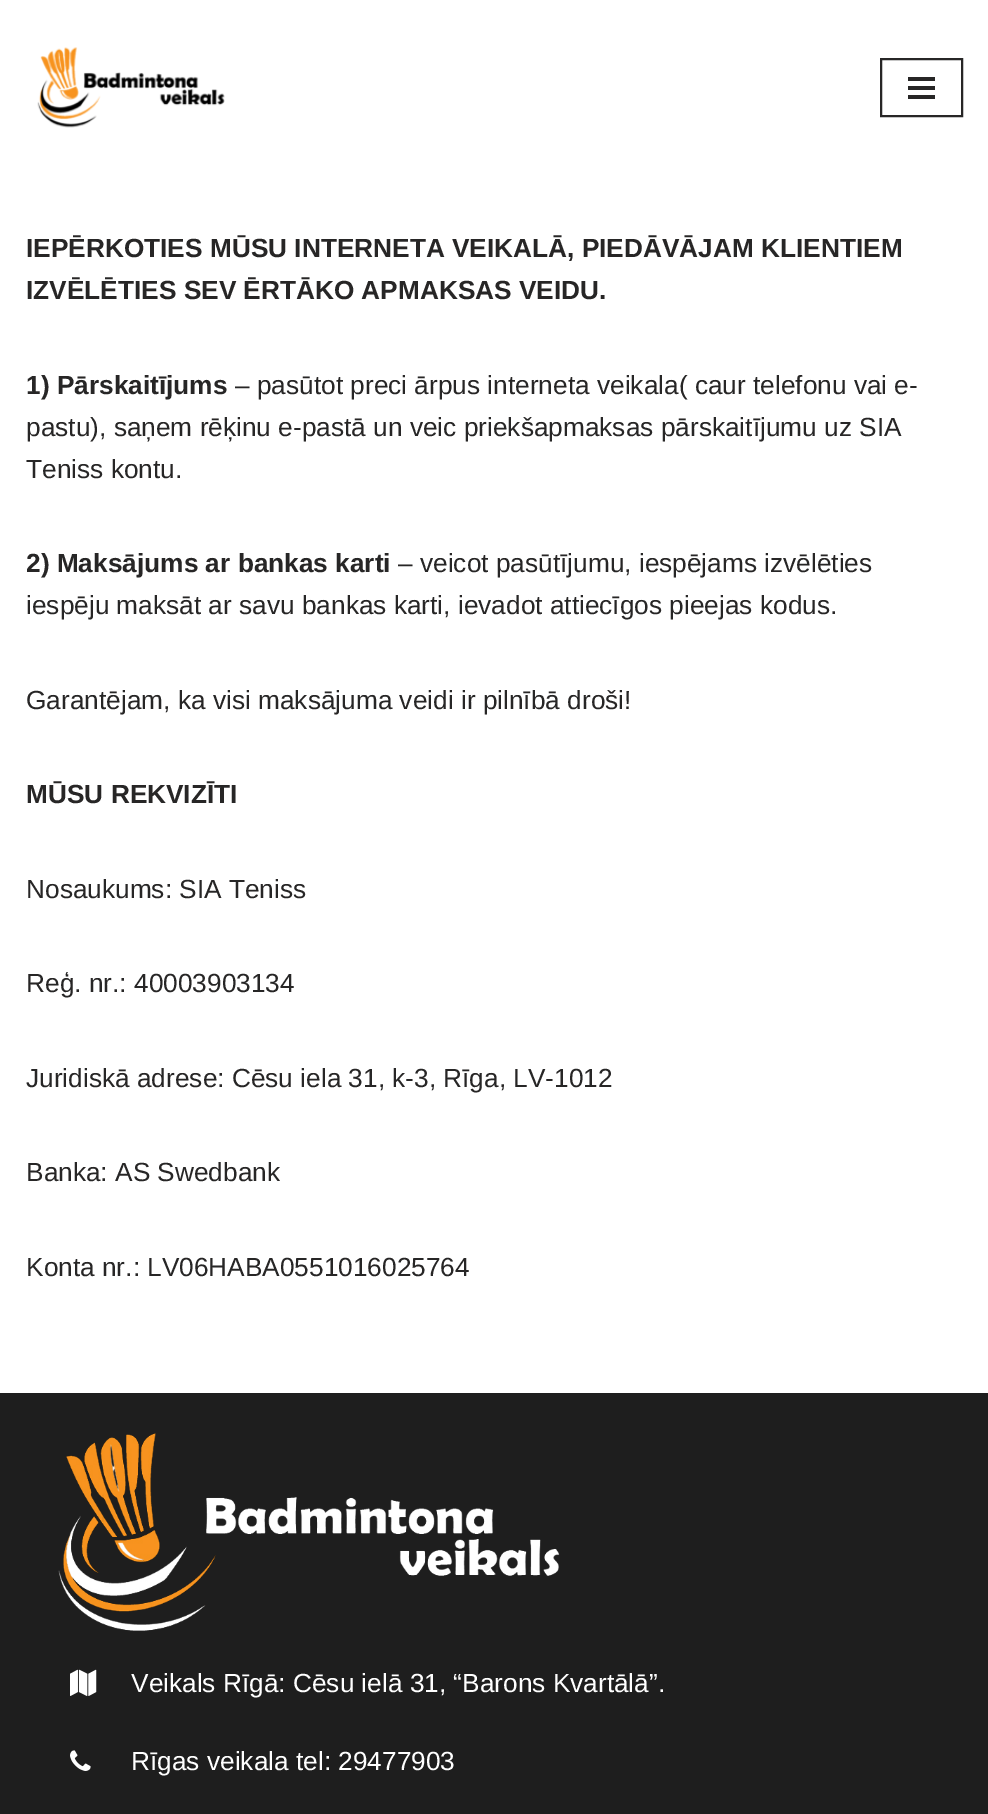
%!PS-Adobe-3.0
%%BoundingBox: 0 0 988 1814
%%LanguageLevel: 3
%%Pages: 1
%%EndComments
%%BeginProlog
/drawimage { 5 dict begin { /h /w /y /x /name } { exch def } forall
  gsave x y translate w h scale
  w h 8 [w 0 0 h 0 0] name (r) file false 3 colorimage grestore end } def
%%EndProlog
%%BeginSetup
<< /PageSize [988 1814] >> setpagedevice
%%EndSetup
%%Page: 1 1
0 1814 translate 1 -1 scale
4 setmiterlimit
1 setgray
0 0 988 1814 rectfill
(images/1.raw) 37 47 188 81 drawimage
0.153 0.149 0.149 setrgbcolor
2 setlinewidth
881 59 81 57 rectstroke
908 77 27 4 rectfill
908 86 27 4 rectfill
908 95 27 4 rectfill
0.118 setgray
0 1393 988 421 rectfill
(images/2.raw) 58 1433 502 198 drawimage
(images/3.raw) 70 1669 27 27 drawimage
(images/4.raw) 70 1750 21 21 drawimage
/LiberationSans-Bold [26.25 0 0 -26.25 0 0] selectfont
0.153 0.149 0.149 setrgbcolor
26 257 moveto (IEPĒRKOTIES MŪSU INTERNETA VEIKALĀ, PIEDĀVĀJAM KLIENTIEM) show
26 299 moveto (IZVĒLĒTIES SEV ĒRTĀKO APMAKSAS VEIDU.) show
26 394 moveto (1\) Pārskaitījums) show
/LiberationSans-Regular [26.25 0 0 -26.25 0 0] selectfont
235 394 moveto (– pasūtot preci ārpus interneta veikala\( caur telefonu vai e-) show
26 436 moveto (pastu\), saņem rēķinu e-pastā un veic priekšapmaksas pārskaitījumu uz SIA) show
26 478 moveto (Teniss kontu.) show
/LiberationSans-Bold [26.25 0 0 -26.25 0 0] selectfont
26 572 moveto (2\) Maksājums ar bankas karti) show
/LiberationSans-Regular [26.25 0 0 -26.25 0 0] selectfont
398 572 moveto (– veicot pasūtījumu, iespējams izvēlēties) show
26 614 moveto (iespēju maksāt ar savu bankas karti, ievadot attiecīgos pieejas kodus.) show
26 709 moveto (Garantējam, ka visi maksājuma veidi ir pilnībā droši!) show
/LiberationSans-Bold [26.25 0 0 -26.25 0 0] selectfont
26 803 moveto (MŪSU REKVIZĪTI) show
/LiberationSans-Regular [26.25 0 0 -26.25 0 0] selectfont
26 898 moveto (Nosaukums: SIA Teniss) show
26 992 moveto (Reģ. nr.: 40003903134) show
26 1087 moveto (Juridiskā adrese: Cēsu iela 31, k-3, Rīga, LV-1012) show
26 1181 moveto (Banka: AS Swedbank) show
26 1276 moveto (Konta nr.: LV06HABA0551016025764) show
1 setgray
131 1692 moveto (Veikals Rīgā: Cēsu ielā 31, “Barons Kvartālā”.) show
131 1770 moveto (Rīgas veikala tel: 29477903) show
showpage
%%EOF
